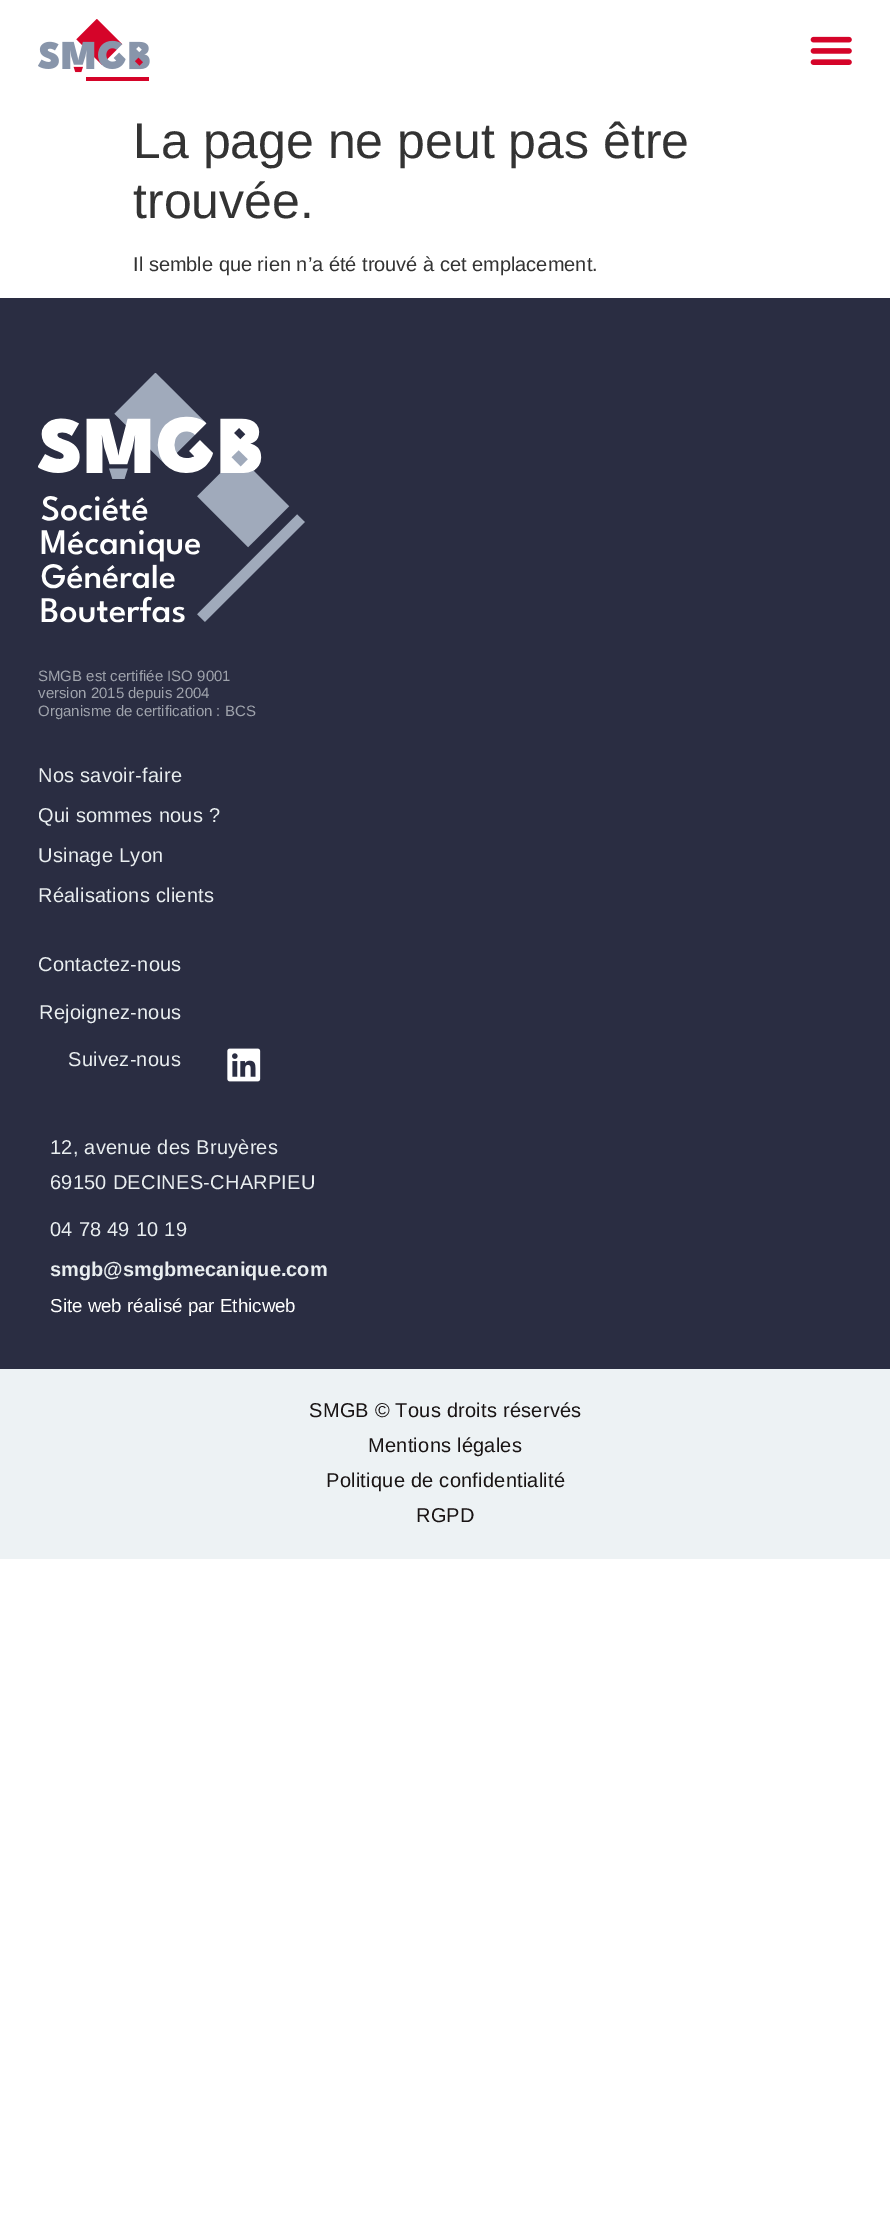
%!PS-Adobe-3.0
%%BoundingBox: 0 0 890 2231
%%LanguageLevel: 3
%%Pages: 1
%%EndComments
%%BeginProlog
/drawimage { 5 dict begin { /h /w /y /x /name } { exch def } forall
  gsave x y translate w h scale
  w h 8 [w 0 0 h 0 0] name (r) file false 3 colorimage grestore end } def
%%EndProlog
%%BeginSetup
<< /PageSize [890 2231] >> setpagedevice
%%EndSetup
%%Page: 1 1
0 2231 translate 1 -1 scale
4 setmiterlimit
1 setgray
0 0 890 2231 rectfill
(images/1.raw) 38 19 112 62 drawimage
(images/2.raw) 810 36 42 29 drawimage
0.165 0.176 0.259 setrgbcolor
0 298 890 1071 rectfill
(images/3.raw) 38 373 267 250 drawimage
(images/4.raw) 227 1048 34 34 drawimage
0.929 0.949 0.957 setrgbcolor
0 1369 890 190 rectfill
/LiberationSans-Regular [50 0 0 -50 0 0] selectfont
0.2 setgray
133 158 moveto (La page ne peut pas être) show
133 218 moveto (trouvée.) show
/LiberationSans-Regular [20 0 0 -20 0 0] selectfont
133 271 moveto (Il semble que rien n’a été trouvé à cet emplacement.) show
/LiberationSans-Regular [15 0 0 -15 0 0] selectfont
0.624 0.639 0.675 setrgbcolor
38 681 moveto (SMGB est certifiée ISO 9001) show
38 698 moveto (version 2015 depuis 2004) show
38 716 moveto (Organisme de certification : BCS) show
/LiberationSans-Regular [20 0 0 -20 0 0] selectfont
0.914 0.933 0.941 setrgbcolor
38 782 moveto 0.25 0 (Nos savoir-faire) ashow
38 822 moveto 0.25 0 (Qui sommes nous ?) ashow
38 862 moveto 0.25 0 (Usinage Lyon) ashow
38 902 moveto 0.25 0 (Réalisations clients) ashow
38 971 moveto 0.25 0 (Contactez-nous) ashow
39 1019 moveto 0.25 0 (Rejoignez-nous) ashow
68 1066 moveto 0.25 0 (Suivez-nous) ashow
50 1154 moveto 0.25 0 (12, avenue des Bruyères) ashow
50 1189 moveto 0.25 0 (69150 DECINES-CHARPIEU) ashow
50 1236 moveto 0.25 0 (04 78 49 10 19) ashow
/LiberationSans-Bold [20 0 0 -20 0 0] selectfont
50 1276 moveto (smgb@smgbmecanique.com) show
/LiberationSans-Regular [18.75 0 0 -18.75 0 0] selectfont
1 setgray
50 1312 moveto (Site web réalisé par Ethicweb) show
/LiberationSans-Regular [20 0 0 -20 0 0] selectfont
0.098 0.078 0.078 setrgbcolor
309 1417 moveto 0.25 0 (SMGB © Tous droits réservés) ashow
368 1452 moveto 0.25 0 (Mentions légales) ashow
326 1487 moveto 0.25 0 (Politique de confidentialité) ashow
416 1522 moveto 0.25 0 (RGPD) ashow
showpage
%%EOF
